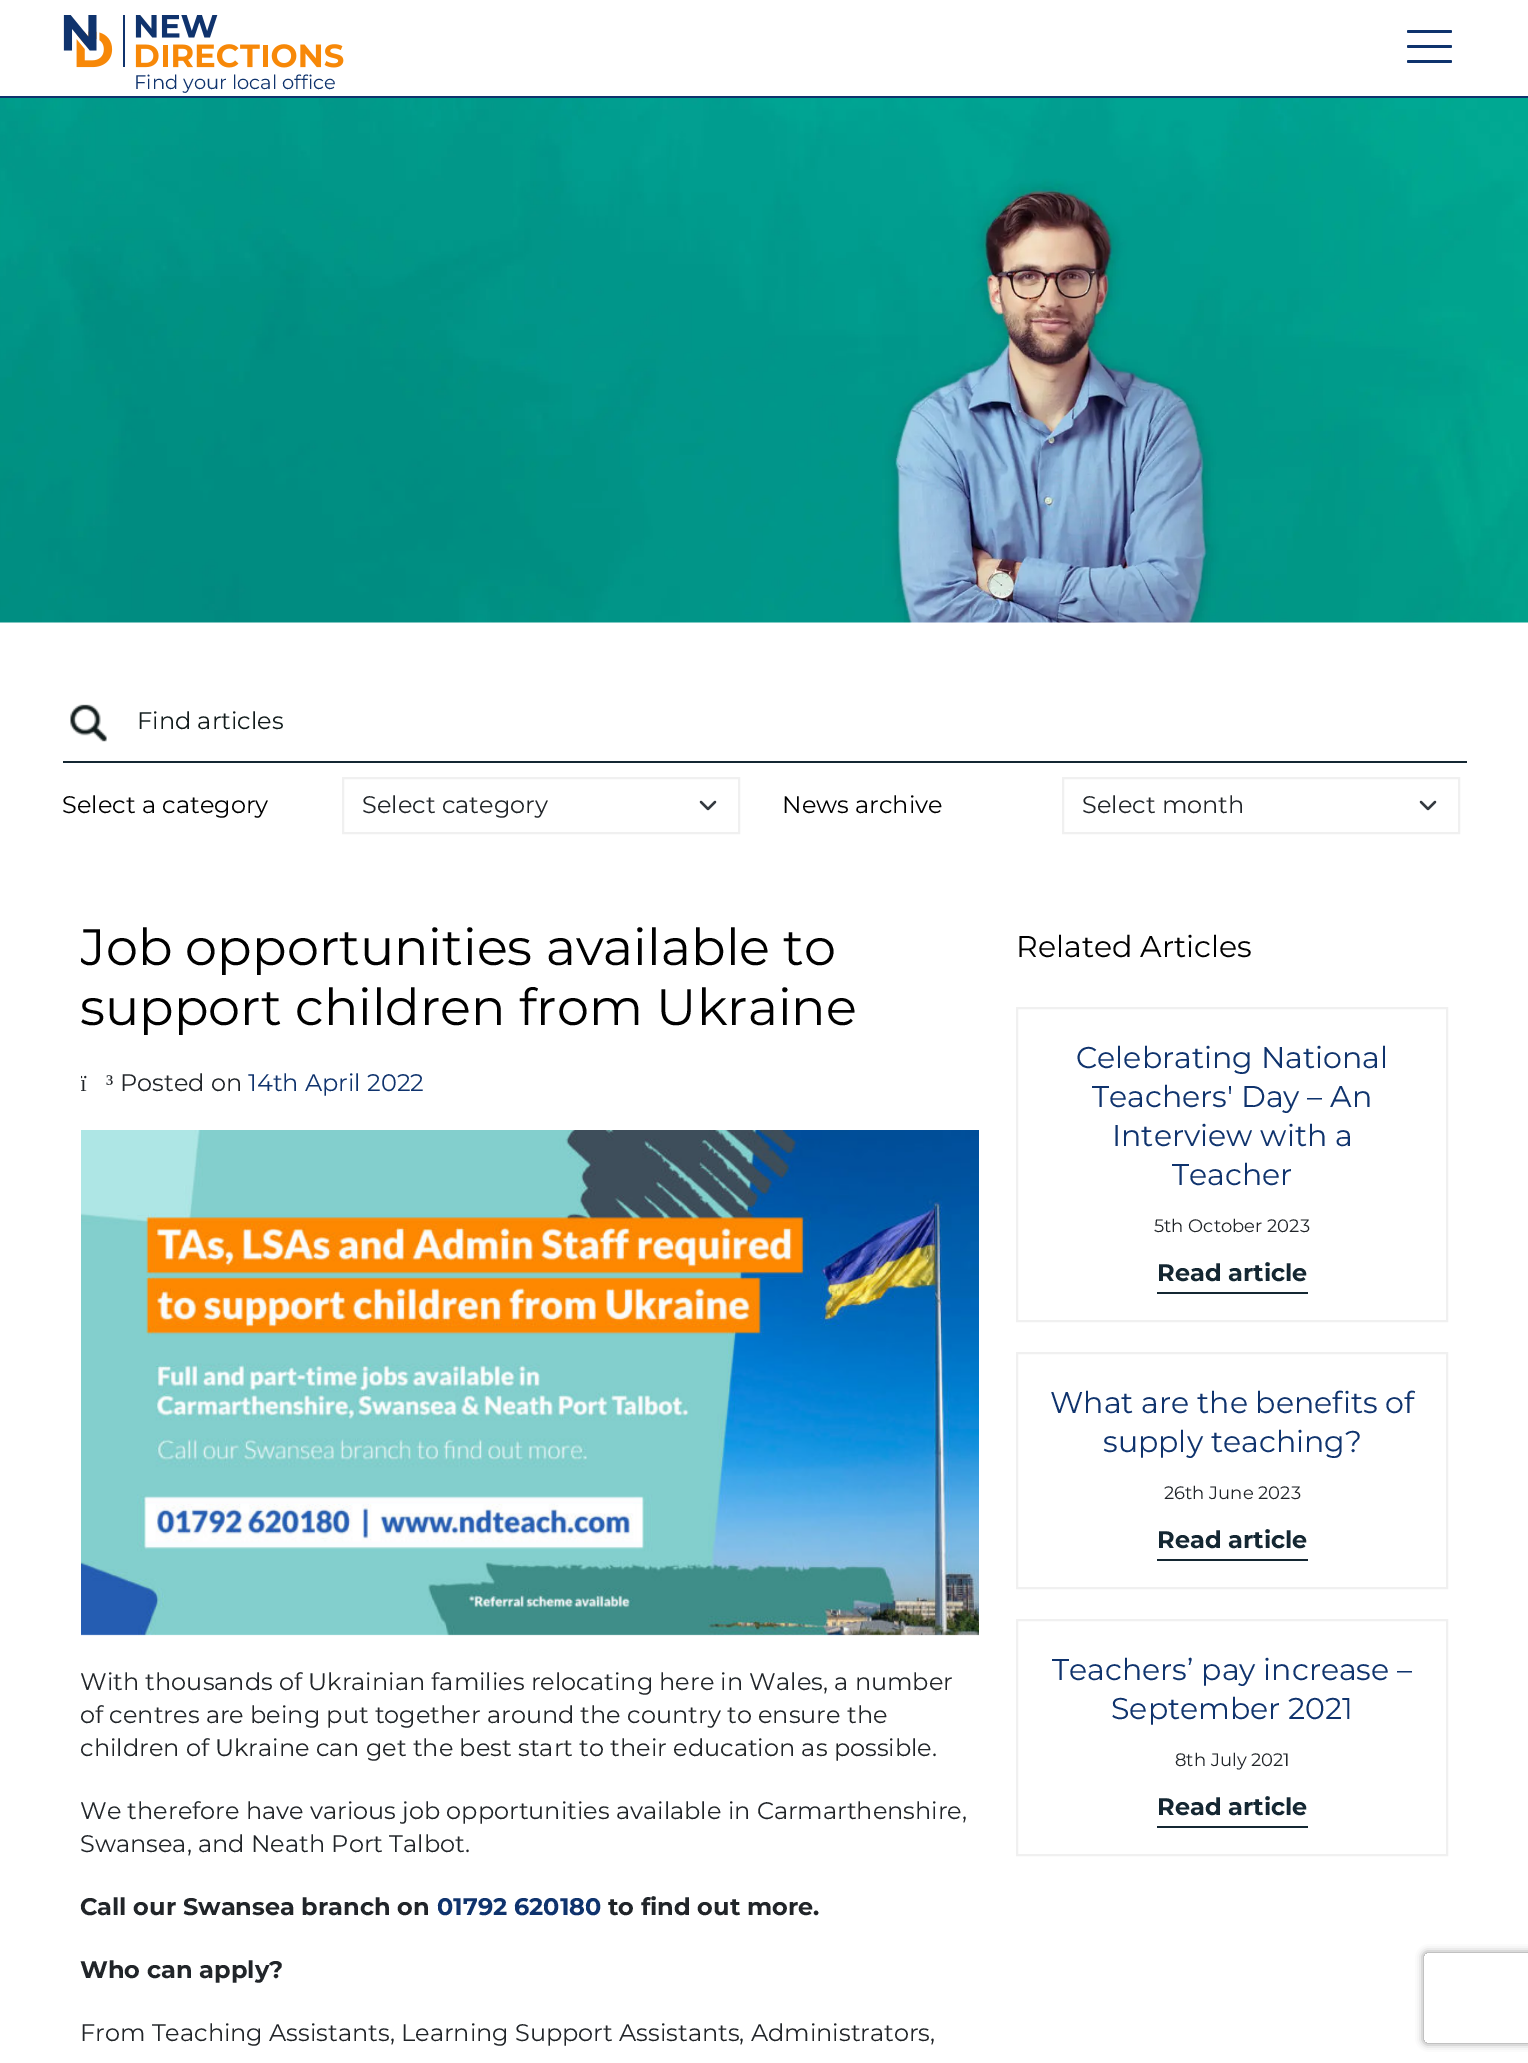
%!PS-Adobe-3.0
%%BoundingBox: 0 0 1528 2063
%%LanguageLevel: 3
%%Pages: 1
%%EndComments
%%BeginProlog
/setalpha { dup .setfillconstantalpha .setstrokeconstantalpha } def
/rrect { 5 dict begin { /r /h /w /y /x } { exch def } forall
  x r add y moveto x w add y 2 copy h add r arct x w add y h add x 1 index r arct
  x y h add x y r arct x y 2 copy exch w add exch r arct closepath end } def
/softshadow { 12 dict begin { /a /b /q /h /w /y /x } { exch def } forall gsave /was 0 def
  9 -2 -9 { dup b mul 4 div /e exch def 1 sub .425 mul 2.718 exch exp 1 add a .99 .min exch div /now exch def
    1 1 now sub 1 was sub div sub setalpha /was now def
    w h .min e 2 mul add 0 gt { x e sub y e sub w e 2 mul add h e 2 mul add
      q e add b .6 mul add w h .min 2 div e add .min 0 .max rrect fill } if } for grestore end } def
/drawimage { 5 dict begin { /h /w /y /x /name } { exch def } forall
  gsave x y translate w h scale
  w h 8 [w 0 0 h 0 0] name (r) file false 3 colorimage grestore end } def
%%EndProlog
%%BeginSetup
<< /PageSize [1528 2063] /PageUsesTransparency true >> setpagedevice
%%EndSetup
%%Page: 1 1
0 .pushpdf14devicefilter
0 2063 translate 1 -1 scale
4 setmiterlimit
1 setgray
0 0 1528 2063 rectfill
0.059 0.2 0.427 setrgbcolor
0 96 1528 2 rectfill
1407 30 45 3 1.5 rrect fill
1407 45 45 3 1.5 rrect fill
1407 60 45 3 1.5 rrect fill
(images/1.raw) 63 15 281 53 drawimage
(images/2.raw) 0 98 1528 525 drawimage
(images/3.raw) 70 704 37 38 drawimage
0.078 0.153 0.196 setrgbcolor
63 761 1404 2 rectfill
0.204 0.227 0.251 setrgbcolor
2.2 setlinewidth
1 setlinecap
1 setlinejoin
newpath 701 802 moveto 708 809 lineto 715 802 lineto stroke
0.941 setgray
2 setlinewidth
0 setlinecap
0 setlinejoin
343 778 396 55 rectstroke
0.204 0.227 0.251 setrgbcolor
2.2 setlinewidth
1 setlinecap
1 setlinejoin
newpath 1421 802 moveto 1428 809 lineto 1435 802 lineto stroke
0.941 setgray
2 setlinewidth
0 setlinecap
0 setlinejoin
1063 778 396 55 rectstroke
(images/4.raw) 81 1130 898 506 drawimage
1017 1008 430 313 rectstroke
0.078 0.153 0.196 setrgbcolor
1157 1292 151 2 rectfill
0.941 setgray
1017 1353 430 235 rectstroke
0.078 0.153 0.196 setrgbcolor
1157 1559 151 2 rectfill
0.941 setgray
1017 1620 430 235 rectstroke
0.078 0.153 0.196 setrgbcolor
1157 1826 151 2 rectfill
gsave
newpath 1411 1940 moveto 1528 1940 lineto 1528 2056 lineto 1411 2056 lineto closepath 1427 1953 moveto 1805 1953 lineto 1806.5 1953 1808 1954.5 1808 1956 curveto 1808 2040 lineto 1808 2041.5 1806.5 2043 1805 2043 curveto 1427 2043 lineto 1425.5 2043 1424 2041.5 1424 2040 curveto 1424 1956 lineto 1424 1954.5 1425.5 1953 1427 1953 curveto closepath eoclip newpath
0.502 setgray
1424 1953 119 90 3 4 1 softshadow
grestore
/Montserrat-Regular [19.5 0 0 -19.5 0 0] selectfont
0.059 0.2 0.427 setrgbcolor
134 89 moveto (Find your local office) show
/Montserrat-Regular [24 0 0 -24 0 0] selectfont
0.071 0.11 0.11 setrgbcolor
137 729 moveto (Find articles) show
0 setgray
62 813 moveto (Select a category) show
0.129 0.145 0.161 setrgbcolor
362 813 moveto (Select category) show
0 setgray
782 813 moveto (News archive) show
0.129 0.145 0.161 setrgbcolor
1082 813 moveto (Select month) show
gsave
81 917 899 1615 rectclip
/Montserrat-Regular [51 0 0 -51 0 0] selectfont
0 setgray
80 965 moveto (Job opportunities available to) show
grestore
/Montserrat-Regular [51 0 0 -51 0 0] selectfont
0 setgray
80 1025 moveto (support children from Ukraine) show
gsave
81 917 899 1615 rectclip
/LiberationSerif-Regular [24 0 0 -24 0 0] selectfont
0.129 0.145 0.161 setrgbcolor
80 1091 moveto (ï) show
grestore
/LiberationSerif-Regular [24 0 0 -24 0 0] selectfont
0.129 0.145 0.161 setrgbcolor
106 1091 moveto (³) show
/Montserrat-Regular [24 0 0 -24 0 0] selectfont
120 1091 moveto (Posted on) show
0.059 0.2 0.427 setrgbcolor
248 1091 moveto (14th April 2022) show
0.129 0.145 0.161 setrgbcolor
80 1690 moveto (With thousands of Ukrainian families relocating here in Wales, a number) show
80 1723 moveto (of centres are being put together around the country to ensure the) show
80 1756 moveto (children of Ukraine can get the best start to their education as possible.) show
80 1819 moveto (We therefore have various job opportunities available in Carmarthenshire,) show
80 1852 moveto (Swansea, and Neath Port Talbot.) show
/Montserrat-Bold [24 0 0 -24 0 0] selectfont
80 1915 moveto (Call our Swansea branch on) show
0.059 0.2 0.427 setrgbcolor
437 1915 moveto (01792 620180) show
0.129 0.145 0.161 setrgbcolor
608 1915 moveto (to find out more.) show
80 1978 moveto (Who can apply?) show
/Montserrat-Regular [24 0 0 -24 0 0] selectfont
80 2041 moveto (From Teaching Assistants, Learning Support Assistants, Administrators,) show
/Montserrat-Regular [30 0 0 -30 0 0] selectfont
0 setgray
1016 957 moveto (Related Articles) show
0.059 0.2 0.427 setrgbcolor
1076 1068 moveto (Celebrating National) show
1092 1107 moveto (Teachers' Day – An) show
1112 1146 moveto (Interview with a) show
1172 1185 moveto (Teacher) show
/Montserrat-Regular [18 0 0 -18 0 0] selectfont
0.129 0.145 0.161 setrgbcolor
1154 1232 moveto (5th October 2023) show
/Montserrat-Bold [24 0 0 -24 0 0] selectfont
0.078 0.153 0.196 setrgbcolor
1157 1281 moveto (Read article) show
/Montserrat-Regular [30 0 0 -30 0 0] selectfont
0.059 0.2 0.427 setrgbcolor
1050 1413 moveto (What are the benefits of) show
1103 1452 moveto (supply teaching?) show
/Montserrat-Regular [18 0 0 -18 0 0] selectfont
0.129 0.145 0.161 setrgbcolor
1164 1499 moveto (26th June 2023) show
/Montserrat-Bold [24 0 0 -24 0 0] selectfont
0.078 0.153 0.196 setrgbcolor
1157 1548 moveto (Read article) show
/Montserrat-Regular [30 0 0 -30 0 0] selectfont
0.059 0.2 0.427 setrgbcolor
1052 1680 moveto (Teachers’ pay increase –) show
1111 1719 moveto (September 2021) show
/Montserrat-Regular [18 0 0 -18 0 0] selectfont
0.129 0.145 0.161 setrgbcolor
1175 1766 moveto (8th July 2021) show
/Montserrat-Bold [24 0 0 -24 0 0] selectfont
0.078 0.153 0.196 setrgbcolor
1157 1815 moveto (Read article) show
.poppdf14devicefilter showpage
%%EOF
